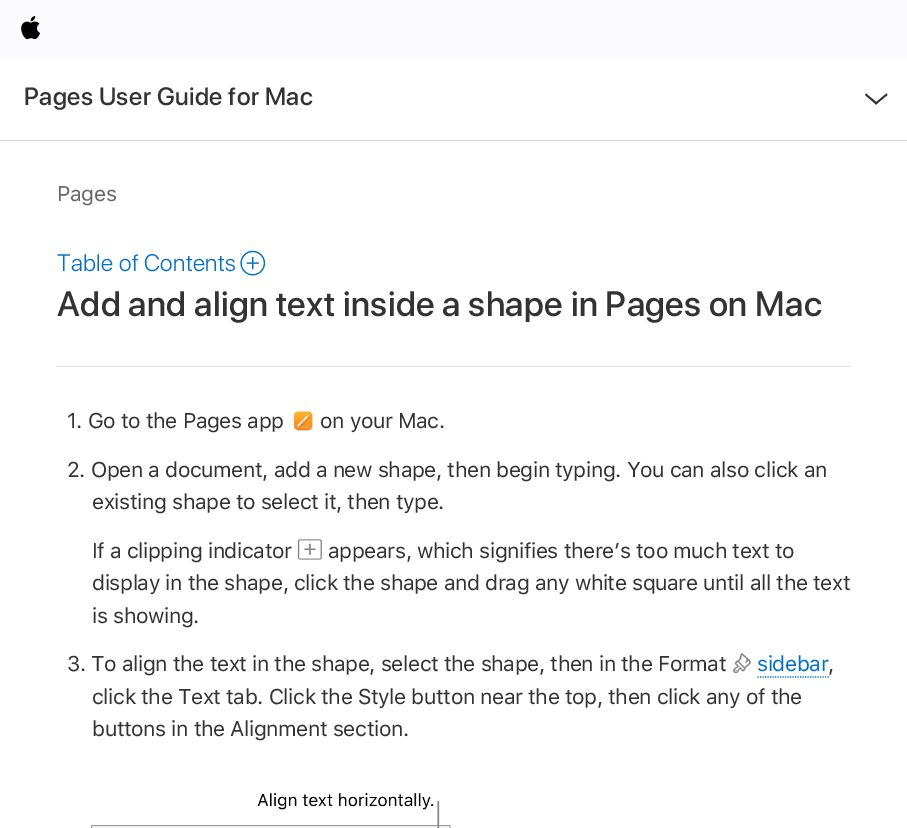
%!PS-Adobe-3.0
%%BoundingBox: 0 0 907 828
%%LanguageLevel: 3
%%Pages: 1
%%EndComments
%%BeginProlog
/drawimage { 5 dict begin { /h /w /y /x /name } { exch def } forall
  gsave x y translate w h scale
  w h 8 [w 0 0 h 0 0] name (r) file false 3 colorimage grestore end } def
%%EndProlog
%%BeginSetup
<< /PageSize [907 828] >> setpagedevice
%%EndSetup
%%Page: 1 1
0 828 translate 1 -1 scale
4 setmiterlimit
1 setgray
0 0 907 828 rectfill
0.984 0.984 0.992 setrgbcolor
0 0 907 60 rectfill
(images/1.raw) 21 16 19 24 drawimage
0.2 setgray
newpath 866 93.5 moveto 877.5 103 lineto 876 104.5 lineto 865 95 lineto closepath fill
newpath 875 103 moveto 886.5 93.5 lineto 887.5 95 lineto 876 104.5 lineto closepath fill
0.839 setgray
0 140 907 1 rectfill
(images/2.raw) 240 250 26 26 drawimage
0.902 setgray
56 366 795 1 rectfill
(images/3.raw) 293 411 20 20 drawimage
(images/4.raw) 297 538 25 22 drawimage
(images/5.raw) 732 653 20 21 drawimage
0 0.439 0.788 setrgbcolor
1.2 setlinewidth
[1.25 1.25] 0 setdash
newpath 757.5 677 moveto 829 677 lineto stroke
(images/6.raw) 91 793 360 35 drawimage
/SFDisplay-Medium [25 0 0 -25 0 0] selectfont
0.2 setgray
24 105 moveto 0.4 0 (Pages User Guide for Mac) ashow
/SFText-Regular [21.25 0 0 -21.25 0 0] selectfont
0.4 setgray
57 201 moveto -0.45 0 (Pages) ashow
/SFDisplay-Light [23.75 0 0 -23.75 0 0] selectfont
0 0.439 0.788 setrgbcolor
57 271 moveto 0.4 0 (Table of Contents) ashow
/SFDisplay-Medium [35 0 0 -35 0 0] selectfont
0.2 setgray
57 316 moveto 0.4 0 (Add and align text inside a shape in Pages on Mac) ashow
/SFText-Regular [21.25 0 0 -21.25 0 0] selectfont
67 428 moveto -0.45 0 (1. Go to the Pages app) ashow
320 428 moveto -0.45 0 (on your Mac.) ashow
67 477 moveto -0.45 0 (2. Open a document, add a new shape, then begin typing. You can also click an) ashow
92 509 moveto -0.45 0 (existing shape to select it, then type.) ashow
92 558 moveto -0.45 0 (If a clipping indicator) ashow
328 558 moveto -0.45 0 (appears, which signifies there’s too much text to) ashow
92 590 moveto -0.45 0 (display in the shape, click the shape and drag any white square until all the text) ashow
92 623 moveto -0.45 0 (is showing.) ashow
67 671 moveto -0.45 0 (3. To align the text in the shape, select the shape, then in the Format) ashow
0 0.439 0.788 setrgbcolor
757 671 moveto -0.45 0 (sidebar) ashow
0.2 setgray
828 671 moveto -0.45 0 (,) ashow
92 704 moveto -0.45 0 (click the Text tab. Click the Style button near the top, then click any of the) ashow
92 736 moveto -0.45 0 (buttons in the Alignment section.) ashow
showpage
%%EOF
